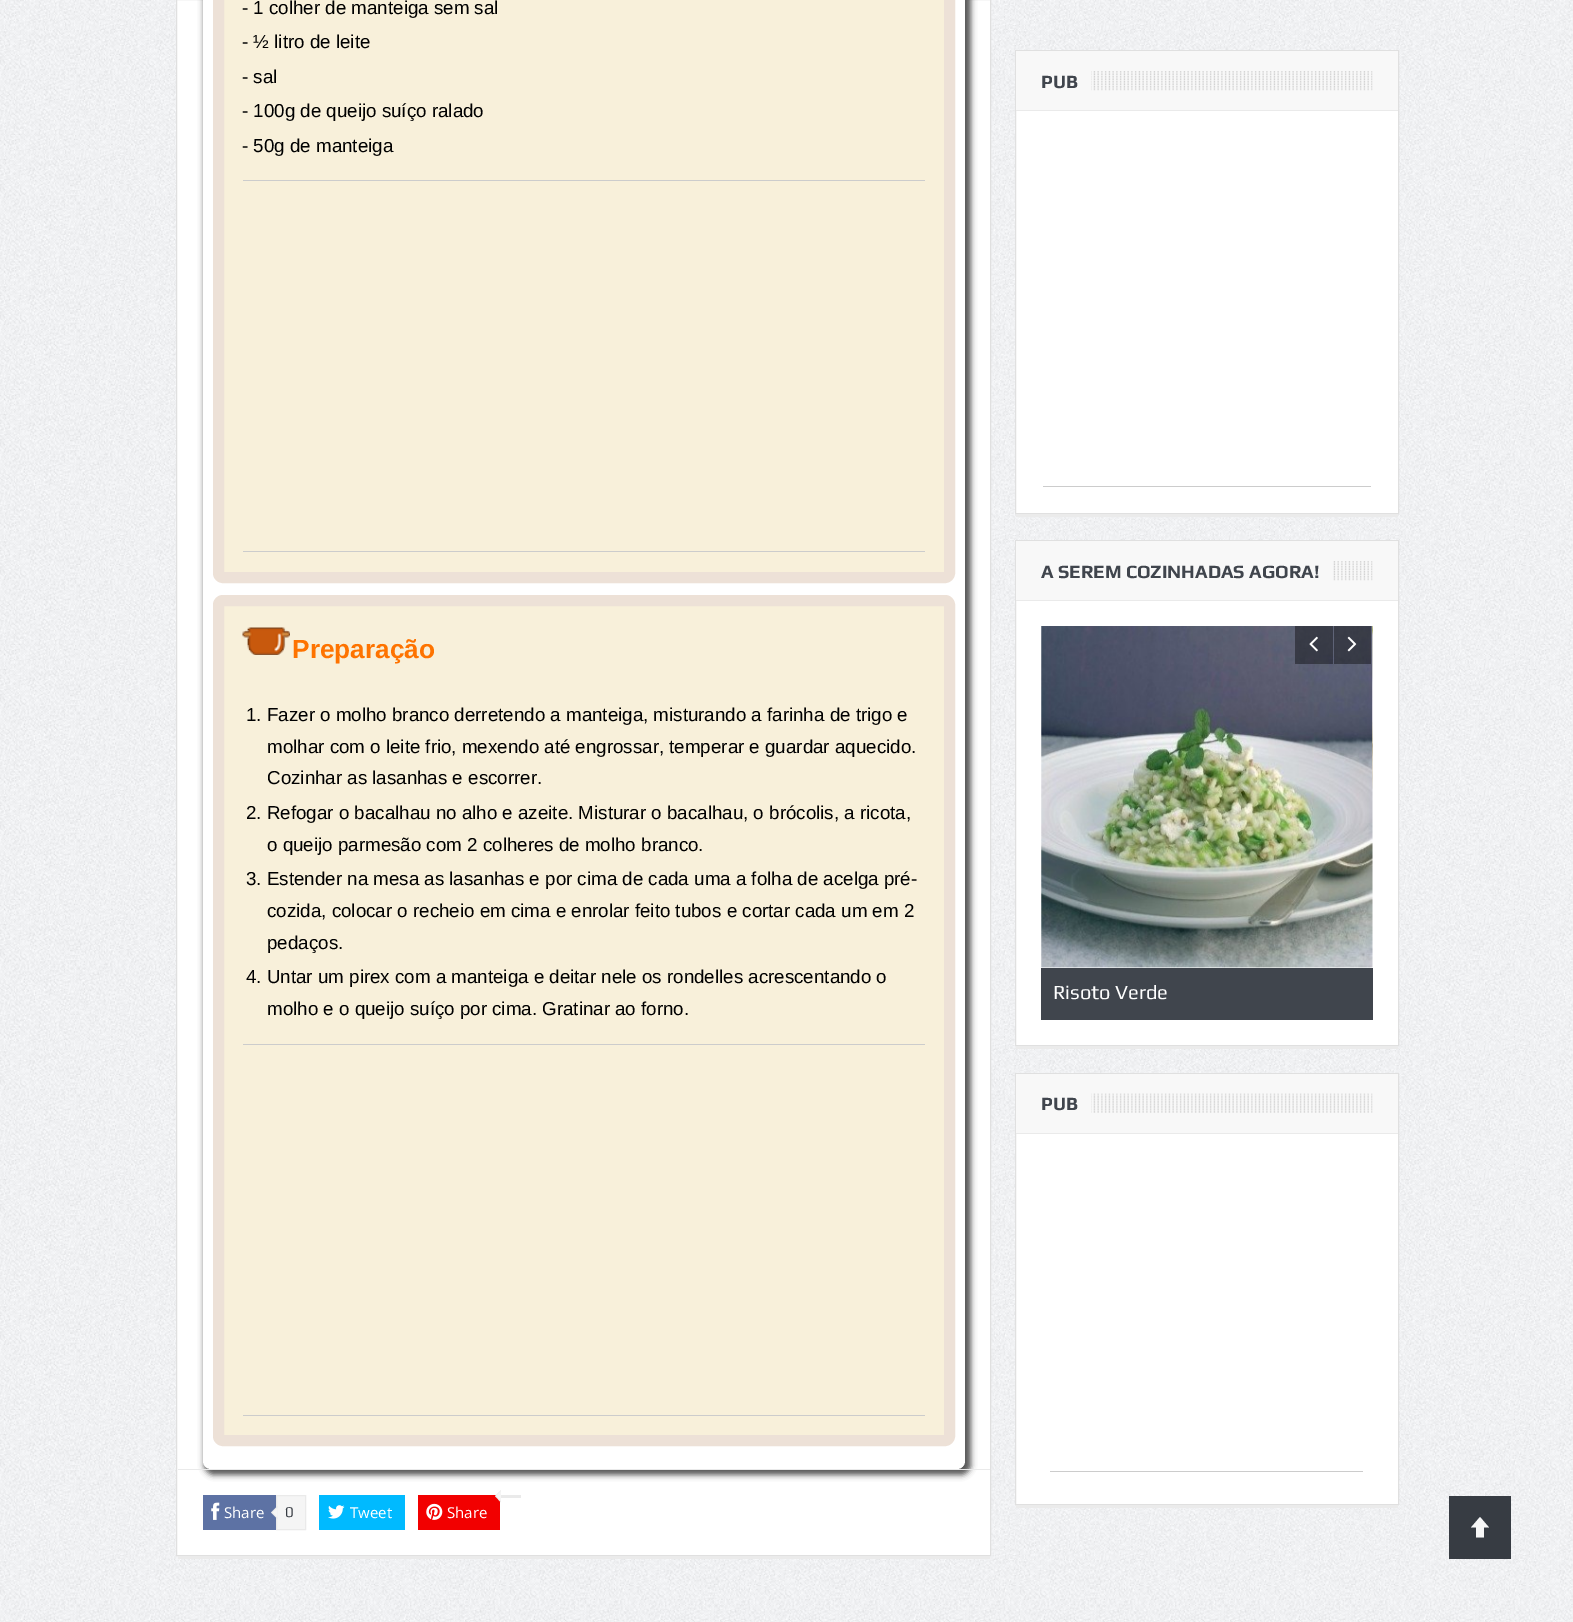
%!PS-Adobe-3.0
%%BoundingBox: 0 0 1573 1622
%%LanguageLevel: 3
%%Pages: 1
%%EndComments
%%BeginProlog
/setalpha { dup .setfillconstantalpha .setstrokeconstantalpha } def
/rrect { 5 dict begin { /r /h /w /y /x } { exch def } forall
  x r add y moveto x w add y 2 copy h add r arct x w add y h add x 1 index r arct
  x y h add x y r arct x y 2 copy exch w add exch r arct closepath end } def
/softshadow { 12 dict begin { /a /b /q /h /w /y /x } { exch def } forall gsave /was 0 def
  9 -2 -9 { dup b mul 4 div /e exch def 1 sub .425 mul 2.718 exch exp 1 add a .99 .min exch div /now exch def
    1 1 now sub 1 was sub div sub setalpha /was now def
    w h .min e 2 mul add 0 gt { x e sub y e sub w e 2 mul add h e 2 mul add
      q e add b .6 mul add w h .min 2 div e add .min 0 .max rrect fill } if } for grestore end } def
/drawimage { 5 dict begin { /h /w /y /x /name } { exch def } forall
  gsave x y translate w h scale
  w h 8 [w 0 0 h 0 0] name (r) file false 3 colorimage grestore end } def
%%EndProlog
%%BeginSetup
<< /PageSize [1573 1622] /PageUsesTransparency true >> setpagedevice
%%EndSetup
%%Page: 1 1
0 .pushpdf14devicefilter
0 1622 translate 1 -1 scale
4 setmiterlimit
1 setgray
0 0 1573 1622 rectfill
(images/1.raw) 0 0 1573 1622 drawimage
newpath 176.5 -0.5 moveto 990.5 -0.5 lineto 990.5 1555.5 lineto 176.5 1555.5 lineto closepath gsave fill grestore
0.878 setgray
stroke
0.333 setgray
204 -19 767 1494 10 3 1 softshadow
1 setgray
203 -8 762 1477 8 rrect fill
0.973 0.941 0.855 setrgbcolor
218.5 -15.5 731 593 4.5 rrect gsave fill grestore
0.929 0.882 0.843 setrgbcolor
11 setlinewidth
stroke
0.8 setgray
243 180 682 1 rectfill
243 551 682 1 rectfill
0.973 0.941 0.855 setrgbcolor
218.5 600.5 731 840 4.5 rrect gsave fill grestore
0.929 0.882 0.843 setrgbcolor
stroke
(images/2.raw) 242 627 48 28 drawimage
0.8 setgray
243 1044 682 1 rectfill
243 1415 682 1 rectfill
0.918 setgray
178 1469 812 1 rectfill
0.365 0.447 0.643 setrgbcolor
203 1495 73 35 rectfill
(images/3.raw) 211 1502 9 18 drawimage
0.961 setgray
newpath 276.5 1495.5 moveto 305.5 1495.5 lineto 305.5 1529.5 lineto 276.5 1529.5 lineto closepath gsave fill grestore
0.918 setgray
1 setlinewidth
stroke
newpath 277.5 1506 moveto 277.5 1519 lineto 271 1512.5 lineto closepath fill
0.961 setgray
newpath 277.5 1507.5 moveto 277.5 1517.5 lineto 272.5 1512.5 lineto closepath fill
0 0.729 1 setrgbcolor
319 1495 86 35 rectfill
(images/4.raw) 328 1505 17 14 drawimage
0.918 setgray
500 1495 21 3 rectfill
0.949 0 0 setrgbcolor
418 1495 82 35 rectfill
0.918 setgray
newpath 501 1490 moveto 501 1502.5 lineto 495 1496 lineto closepath fill
0.961 setgray
newpath 501 1491 moveto 501 1501 lineto 496 1496 lineto closepath fill
(images/5.raw) 426 1503 17 17 drawimage
0.922 setgray
178 1556 812 3 rectfill
1 setgray
1016 111 382 402 rectfill
0.878 setgray
1015.5 50.5 383 463 rectstroke
0.973 setgray
1016 51 382 59 rectfill
0.918 setgray
1016 110 382 1 rectfill
(images/6.raw) 1091 71 282 20 drawimage
0.8 setgray
1043 486 328 1 rectfill
0.922 setgray
1016 514 382 3 rectfill
1 setgray
1016 601 382 444 rectfill
0.878 setgray
1015.5 540.5 383 505 rectstroke
0.973 setgray
1016 541 382 59 rectfill
0.918 setgray
1016 600 382 1 rectfill
(images/7.raw) 1333 561 40 20 drawimage
(images/11.raw) 1041 626 332 342 drawimage
0.4 setalpha
0 setgray
1295 626 38 38 rectfill
1 setalpha
(images/8.raw) 1309 636 9 16 drawimage
0.4 setalpha
1334 626 37 38 rectfill
1 setalpha
(images/9.raw) 1347 636 10 16 drawimage
(images/10.raw) 1372 626 1 163 drawimage
0.251 0.271 0.302 setrgbcolor
1041 968 332 52 rectfill
0.922 setgray
1016 1046 382 3 rectfill
1 setgray
1016 1134 382 370 rectfill
0.878 setgray
1015.5 1073.5 383 431 rectstroke
0.973 setgray
1016 1074 382 59 rectfill
0.918 setgray
1016 1133 382 1 rectfill
(images/12.raw) 1091 1093 282 20 drawimage
0.8 setgray
1050 1471 313 1 rectfill
0.922 setgray
1016 1505 382 3 rectfill
0.216 0.235 0.263 setrgbcolor
1449 1496 62 63 rectfill
0.973 setgray
newpath 1489 1527.5 moveto 1484 1527.5 lineto 1484 1537.5 lineto 1476 1537.5 lineto 1476 1527.5 lineto 1471 1527.5 lineto 1480 1517 lineto closepath fill
/LiberationSans-Regular [18.75 0 0 -18.75 0 0] selectfont
0 setgray
242 14 moveto (- 1 colher de manteiga sem sal) show
242 48 moveto (- ½ litro de leite) show
242 83 moveto (- sal) show
242 117 moveto (- 100g de queijo suíço ralado) show
242 152 moveto (- 50g de manteiga) show
/LiberationSans-Bold [26.25 0 0 -26.25 0 0] selectfont
0.996 0.451 0 setrgbcolor
292 658 moveto (Preparação) show
/LiberationSans-Regular [18.75 0 0 -18.75 0 0] selectfont
0 setgray
246 721 moveto (1. Fazer o molho branco derretendo a manteiga, misturando a farinha de trigo e) show
267 753 moveto (molhar com o leite frio, mexendo até engrossar, temperar e guardar aquecido.) show
267 784 moveto (Cozinhar as lasanhas e escorrer.) show
246 819 moveto (2. Refogar o bacalhau no alho e azeite. Misturar o bacalhau, o brócolis, a ricota,) show
267 851 moveto (o queijo parmesão com 2 colheres de molho branco.) show
246 885 moveto (3. Estender na mesa as lasanhas e por cima de cada uma a folha de acelga pré-) show
267 917 moveto (cozida, colocar o recheio em cima e enrolar feito tubos e cortar cada um em 2) show
267 949 moveto (pedaços.) show
246 983 moveto (4. Untar um pirex com a manteiga e deitar nele os rondelles acrescentando o) show
267 1015 moveto (molho e o queijo suíço por cima. Gratinar ao forno.) show
/OpenSans-Regular [15 0 0 -15 0 0] selectfont
1 setgray
224 1518 moveto (Share) show
/Play-Regular [15 0 0 -15 0 0] selectfont
0.216 0.235 0.263 setrgbcolor
285 1517 moveto (0) show
/OpenSans-Regular [15 0 0 -15 0 0] selectfont
1 setgray
350 1518 moveto (Tweet) show
447 1518 moveto (Share) show
/Play-Bold [18.75 0 0 -18.75 0 0] selectfont
0.251 0.271 0.302 setrgbcolor
1041 88 moveto (PUB) show
1041 578 moveto (A SEREM COZINHADAS AGORA!) show
/Play-Regular [20 0 0 -20 0 0] selectfont
1 setgray
1053 999 moveto (Risoto Verde) show
/Play-Bold [18.75 0 0 -18.75 0 0] selectfont
0.251 0.271 0.302 setrgbcolor
1041 1110 moveto (PUB) show
.poppdf14devicefilter showpage
%%EOF
